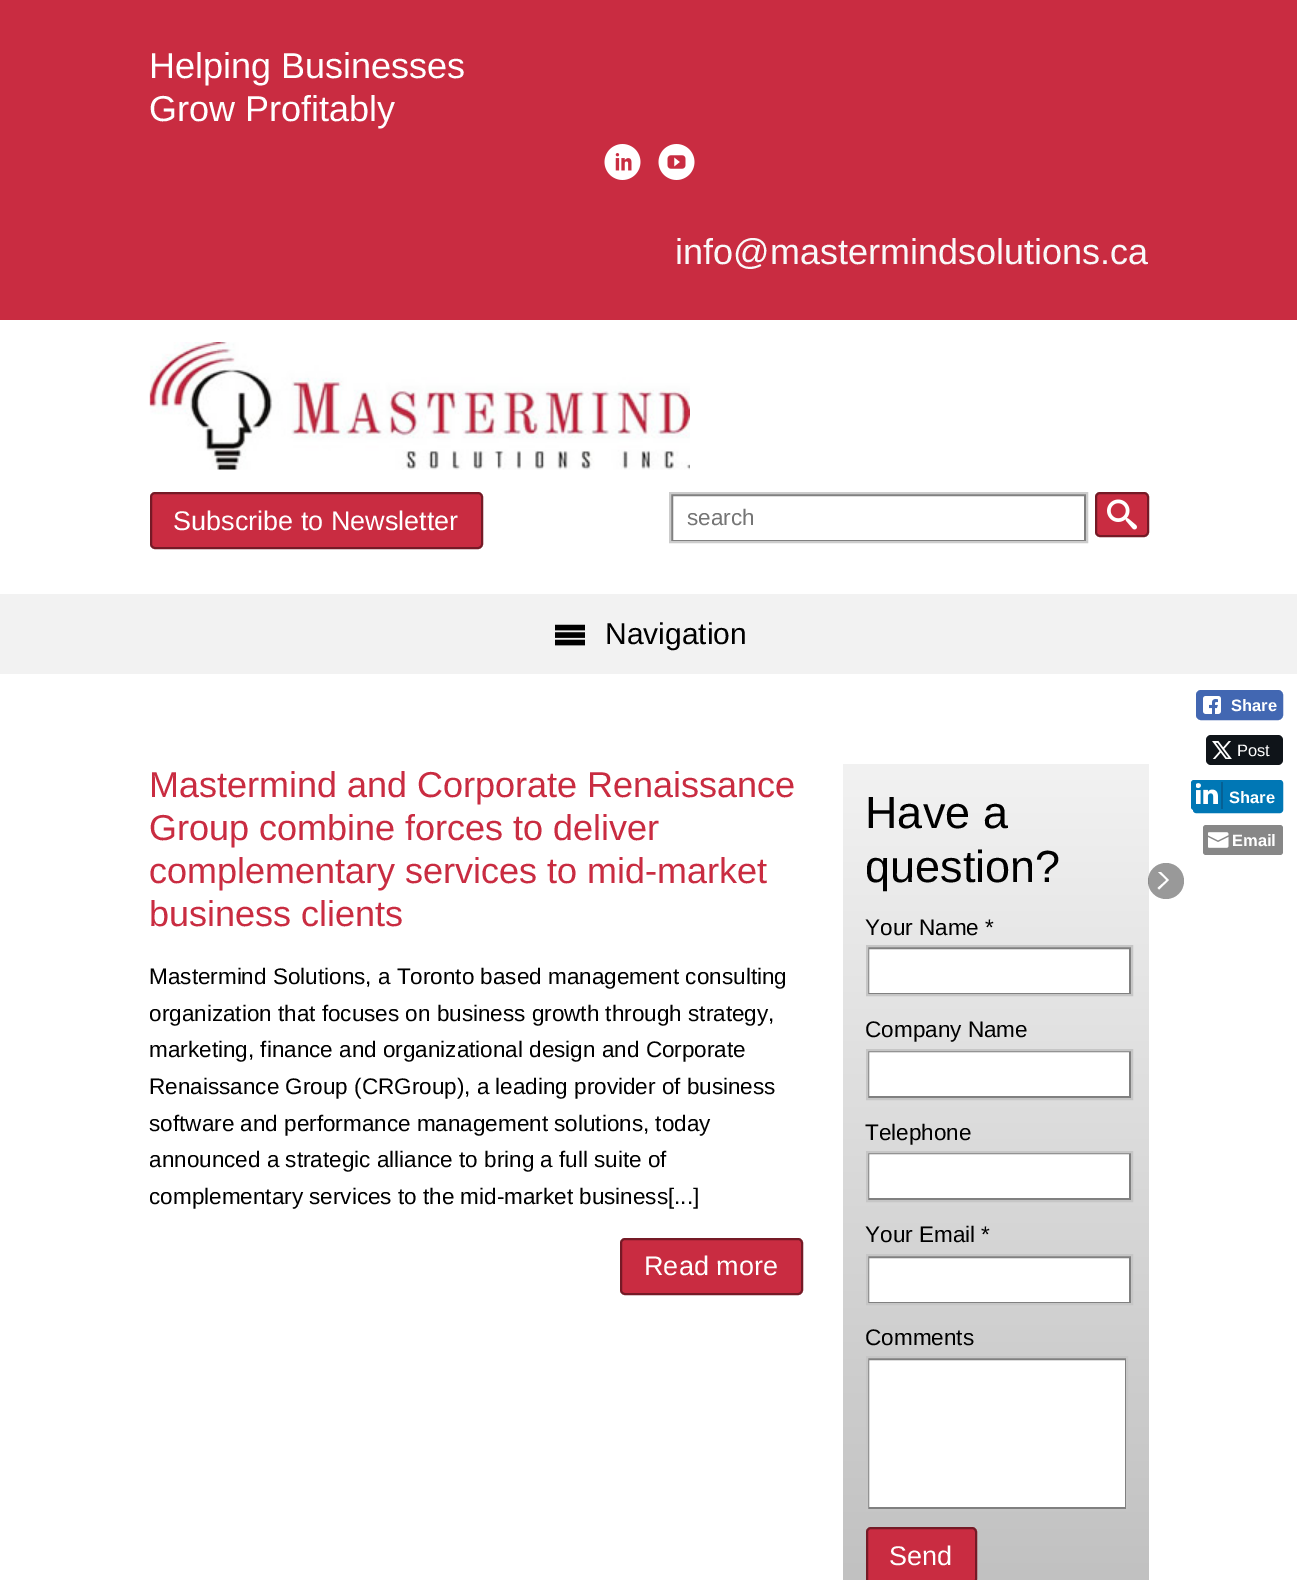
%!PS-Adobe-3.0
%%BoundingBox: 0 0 1297 1580
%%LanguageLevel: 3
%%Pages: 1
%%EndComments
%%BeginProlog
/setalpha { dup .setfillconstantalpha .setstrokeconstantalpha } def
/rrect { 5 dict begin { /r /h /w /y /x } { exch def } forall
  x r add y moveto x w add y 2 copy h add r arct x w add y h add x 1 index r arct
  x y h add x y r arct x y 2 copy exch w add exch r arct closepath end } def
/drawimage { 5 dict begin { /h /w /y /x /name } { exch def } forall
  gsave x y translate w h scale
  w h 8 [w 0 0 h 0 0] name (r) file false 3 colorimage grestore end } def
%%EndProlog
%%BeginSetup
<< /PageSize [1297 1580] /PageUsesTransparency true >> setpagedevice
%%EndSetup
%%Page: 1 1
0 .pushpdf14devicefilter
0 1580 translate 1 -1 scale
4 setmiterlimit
1 setgray
0 0 1297 1580 rectfill
0.788 0.173 0.255 setrgbcolor
0 0 1297 320 rectfill
(images/1.raw) 604 144 37 36 drawimage
(images/2.raw) 658 144 37 36 drawimage
(images/3.raw) 149 342 541 128 drawimage
151 493 331 55 4 rrect gsave fill grestore
0.459 0.102 0.149 setrgbcolor
2 setlinewidth
stroke
0.502 setgray
672 495 413 46 rectstroke
0.8 setgray
670 493 417 49 rectstroke
0.788 0.173 0.255 setrgbcolor
1096 493 52 43 4 rrect gsave fill grestore
0.459 0.102 0.149 setrgbcolor
stroke
(images/4.raw) 1107 499 30 31 drawimage
0.949 setgray
0 594 1297 80 rectfill
(images/5.raw) 555 624 30 22 drawimage
0.788 0.173 0.255 setrgbcolor
621 1239 181 55 4 rrect gsave fill grestore
0.459 0.102 0.149 setrgbcolor
stroke
gsave newpath 843 764 moveto 1149 764 lineto 1149 1580 lineto 843 1580 lineto closepath clip newpath
<< /ShadingType 2 /ColorSpace /DeviceRGB /Coords [843 764 843 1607] /Extend [true true] /Function << /FunctionType 2 /Domain [0 1] /C0 [0.949 0.949 0.949] /C1 [0.749 0.749 0.749] /N 1 >> >> shfill grestore
1 setgray
newpath 868 948 moveto 1130 948 lineto 1130 994 lineto 868 994 lineto closepath gsave fill grestore
0.502 setgray
stroke
0.776 setgray
867 946 265 49 rectstroke
1 setgray
newpath 868 1051 moveto 1130 1051 lineto 1130 1097 lineto 868 1097 lineto closepath gsave fill grestore
0.502 setgray
stroke
0.776 setgray
867 1050 265 49 rectstroke
1 setgray
newpath 868 1153 moveto 1130 1153 lineto 1130 1199 lineto 868 1199 lineto closepath gsave fill grestore
0.502 setgray
stroke
0.776 setgray
867 1152 265 49 rectstroke
1 setgray
newpath 868 1257 moveto 1130 1257 lineto 1130 1303 lineto 868 1303 lineto closepath gsave fill grestore
0.502 setgray
stroke
0.776 setgray
867 1255 265 49 rectstroke
1 setgray
newpath 868 1359 moveto 1126 1359 lineto 1126 1508 lineto 868 1508 lineto closepath gsave fill grestore
0.502 setgray
stroke
0.776 setgray
867 1357 260 153 rectstroke
0.788 0.173 0.255 setrgbcolor
867 1528 109 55 4 rrect gsave fill grestore
0.459 0.102 0.149 setrgbcolor
stroke
0.259 0.404 0.698 setrgbcolor
1197 691 85 28 4 rrect gsave fill grestore
stroke
(images/6.raw) 1203 696 18 18 drawimage
0.059 0.078 0.098 setrgbcolor
1206 735 77 30 5 rrect fill
(images/7.raw) 1212 741 20 18 drawimage
0 0.467 0.71 setrgbcolor
1194 781 88 31 2 rrect gsave fill grestore
stroke
1191 780 32 30 3 rrect fill
0.024 0.376 0.58 setrgbcolor
1221 782 2 27 rectfill
(images/8.raw) 1196 783 22 21 drawimage
0.529 setgray
1203 825 80 30 3 rrect fill
(images/9.raw) 1208 832 21 16 drawimage
0.4 setalpha
0 setgray
newpath 1166 881 18 0 360 arc closepath fill
gsave
1155 872 20 19 rectclip
1 setalpha
1 setgray
newpath 1157.5 888 moveto 1159 889.5 lineto 1169 880 lineto 1159 870 lineto 1157.5 871.5 lineto 1166.5 880 lineto fill
grestore
/LiberationSans-Regular [36 0 0 -36 0 0] selectfont
1 setalpha
1 setgray
149 78 moveto (Helping Businesses) show
149 121 moveto (Grow Profitably) show
0.976 setgray
675 264 moveto (info@mastermindsolutions.ca) show
/LiberationSans-Regular [27 0 0 -27 0 0] selectfont
1 setgray
173 530 moveto (Subscribe to Newsletter) show
/LiberationSans-Regular [22.5 0 0 -22.5 0 0] selectfont
0.459 setgray
687 525 moveto (search) show
/LiberationSans-Regular [30 0 0 -30 0 0] selectfont
0 setgray
605 644 moveto (Navigation) show
/LiberationSans-Regular [36 0 0 -36 0 0] selectfont
0.788 0.173 0.255 setrgbcolor
149 797 moveto (Mastermind and Corporate Renaissance) show
149 840 moveto (Group combine forces to deliver) show
149 883 moveto (complementary services to mid-market) show
149 926 moveto (business clients) show
/LiberationSans-Regular [22.5 0 0 -22.5 0 0] selectfont
0 setgray
149 984 moveto (Mastermind Solutions, a Toronto based management consulting) show
149 1021 moveto (organization that focuses on business growth through strategy,) show
149 1057 moveto (marketing, finance and organizational design and Corporate) show
149 1094 moveto (Renaissance Group \(CRGroup\), a leading provider of business) show
149 1131 moveto (software and performance management solutions, today) show
149 1167 moveto (announced a strategic alliance to bring a full suite of) show
149 1204 moveto (complementary services to the mid-market business[...]) show
/LiberationSans-Regular [27 0 0 -27 0 0] selectfont
1 setgray
644 1275 moveto (Read more) show
/LiberationSans-Regular [45 0 0 -45 0 0] selectfont
0 setgray
865 828 moveto (Have a) show
865 882 moveto (question?) show
/LiberationSans-Regular [22.5 0 0 -22.5 0 0] selectfont
865 935 moveto (Your Name *) show
865 1037 moveto (Company Name) show
865 1140 moveto (Telephone) show
865 1242 moveto (Your Email *) show
865 1345 moveto (Comments) show
/LiberationSans-Regular [27 0 0 -27 0 0] selectfont
1 setgray
889 1565 moveto (Send) show
/LiberationSans-Bold [16.5 0 0 -16.5 0 0] selectfont
1231 711 moveto (Share) show
/LiberationSans-Regular [16.5 0 0 -16.5 0 0] selectfont
1237 756 moveto (Post) show
/LiberationSans-Bold [16.5 0 0 -16.5 0 0] selectfont
1229 803 moveto (Share) show
1232 846 moveto (Email) show
.poppdf14devicefilter showpage
%%EOF
